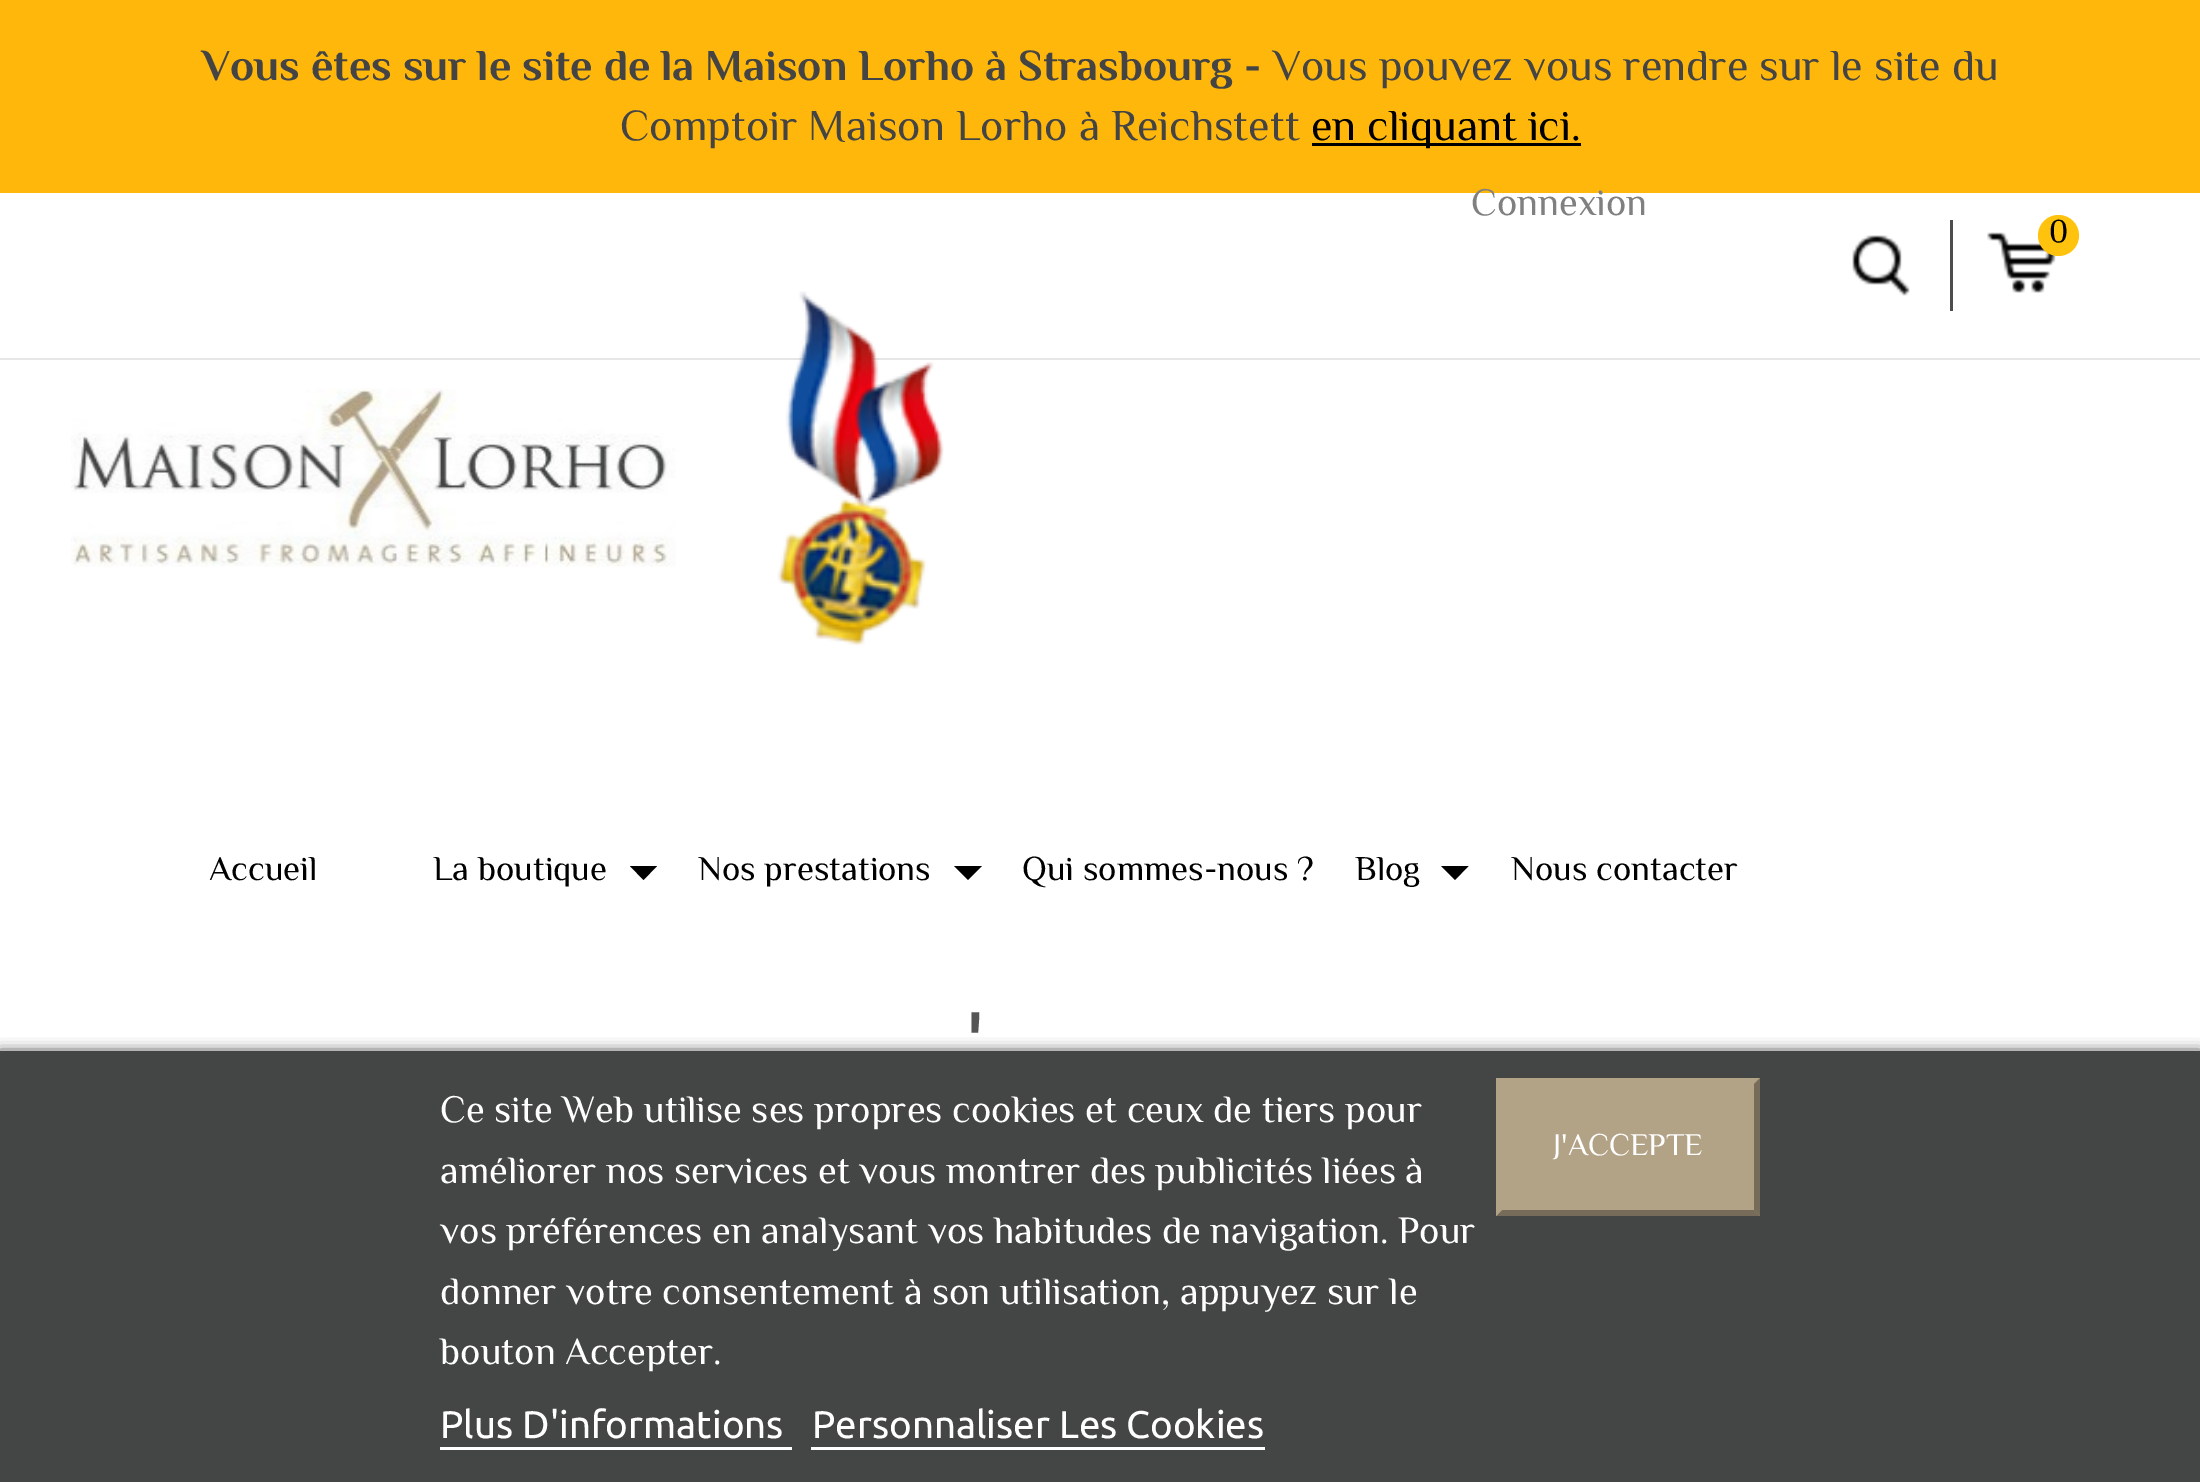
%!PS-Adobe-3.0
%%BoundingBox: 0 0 2200 1482
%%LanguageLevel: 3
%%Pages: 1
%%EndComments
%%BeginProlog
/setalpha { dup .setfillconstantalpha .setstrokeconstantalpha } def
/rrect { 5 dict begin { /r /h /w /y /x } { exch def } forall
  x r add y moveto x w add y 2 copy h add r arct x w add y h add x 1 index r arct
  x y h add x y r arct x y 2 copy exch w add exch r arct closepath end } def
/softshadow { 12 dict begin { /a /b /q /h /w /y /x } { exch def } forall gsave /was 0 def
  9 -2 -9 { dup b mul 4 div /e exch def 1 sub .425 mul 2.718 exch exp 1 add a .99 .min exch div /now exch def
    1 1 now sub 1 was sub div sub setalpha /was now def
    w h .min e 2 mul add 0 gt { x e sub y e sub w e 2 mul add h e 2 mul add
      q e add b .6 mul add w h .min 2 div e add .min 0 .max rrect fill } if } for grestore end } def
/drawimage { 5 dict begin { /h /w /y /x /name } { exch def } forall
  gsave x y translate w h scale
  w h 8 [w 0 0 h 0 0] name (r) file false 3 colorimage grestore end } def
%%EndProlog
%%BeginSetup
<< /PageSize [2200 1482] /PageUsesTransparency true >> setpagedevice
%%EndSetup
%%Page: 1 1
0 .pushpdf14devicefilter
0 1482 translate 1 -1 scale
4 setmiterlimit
1 setgray
0 0 2200 1482 rectfill
1 0.718 0.043 setrgbcolor
0 0 2200 193 rectfill
0 setgray
1312 143 269 3 rectfill
0.902 setgray
0 358 2200 2 rectfill
0.302 setgray
1950 220 3 91 rectfill
(images/1.raw) 1852 235 58 61 drawimage
(images/2.raw) 1987 232 69 61 drawimage
1 0.765 0.055 setrgbcolor
newpath 2058.5 235.5 20.5 0 360 arc closepath fill
(images/3.raw) 71 388 605 179 drawimage
(images/4.raw) 777 291 167 355 drawimage
0 setgray
newpath 630 866 moveto 657 866 lineto 643.5 880 lineto closepath fill
newpath 954 866 moveto 982 866 lineto 968 880 lineto closepath fill
newpath 1441 866 moveto 1468.5 866 lineto 1455 880 lineto closepath fill
0 1053 2200 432 0 7 1 softshadow
0.267 0.271 0.271 setrgbcolor
0 1051 2200 431 rectfill
1 setgray
440 1447 352 3 rectfill
811 1447 454 3 rectfill
0.698 0.635 0.525 setrgbcolor
1496 1078 264 138 rectfill
0.467 0.424 0.349 setrgbcolor
newpath 1760 1078 moveto 1760 1216 lineto 1754 1210 lineto 1754 1084 lineto closepath fill
newpath 1760 1216 moveto 1496 1216 lineto 1502 1210 lineto 1754 1210 lineto closepath fill
0.698 0.635 0.525 setrgbcolor
newpath 1496 1216 moveto 1496 1078 lineto 1502 1084 lineto 1502 1210 lineto closepath fill
/Philosopher-Bold [44 0 0 -44 0 0] selectfont
0.267 setgray
202 80 moveto (Vous êtes sur le site de la Maison Lorho à Strasbourg -) show
/Philosopher-Regular [44 0 0 -44 0 0] selectfont
1273 80 moveto (Vous pouvez vous rendre sur le site du) show
620 140 moveto (Comptoir Maison Lorho à Reichstett) show
0 setgray
1311 140 moveto (en cliquant ici.) show
/Philosopher-Regular [38.5 0 0 -38.5 0 0] selectfont
0.502 setgray
1471 215 moveto (Connexion) show
/Philosopher-Regular [33 0 0 -33 0 0] selectfont
0 setgray
2049 242 moveto (0) show
/Philosopher-Regular [34.75 0 0 -34.75 0 0] selectfont
209 880 moveto (Accueil) show
433 880 moveto (La boutique) show
698 880 moveto (Nos prestations) show
1022 880 moveto (Qui sommes-nous ?) show
1355 880 moveto (Blog) show
1511 880 moveto (Nous contacter) show
/Roboto-Bold [77 0 0 -77 0 0] selectfont
0.333 setgray
969 1070 moveto (') show
/Philosopher-Regular [38.5 0 0 -38.5 0 0] selectfont
1 setgray
440 1122 moveto (Ce site Web utilise ses propres cookies et ceux de tiers pour) show
440 1183 moveto (améliorer nos services et vous montrer des publicités liées à) show
440 1243 moveto (vos préférences en analysant vos habitudes de navigation. Pour) show
440 1304 moveto (donner votre consentement à son utilisation, appuyez sur le) show
440 1364 moveto (bouton Accepter.) show
/Ubuntu-Regular [38.5 0 0 -38.5 0 0] selectfont
440 1438 moveto (Plus D'informations) show
812 1438 moveto (Personnaliser Les Cookies) show
/Philosopher-Regular [31.5 0 0 -31.5 0 0] selectfont
1553 1155 moveto (J'ACCEPTE) show
.poppdf14devicefilter showpage
%%EOF
